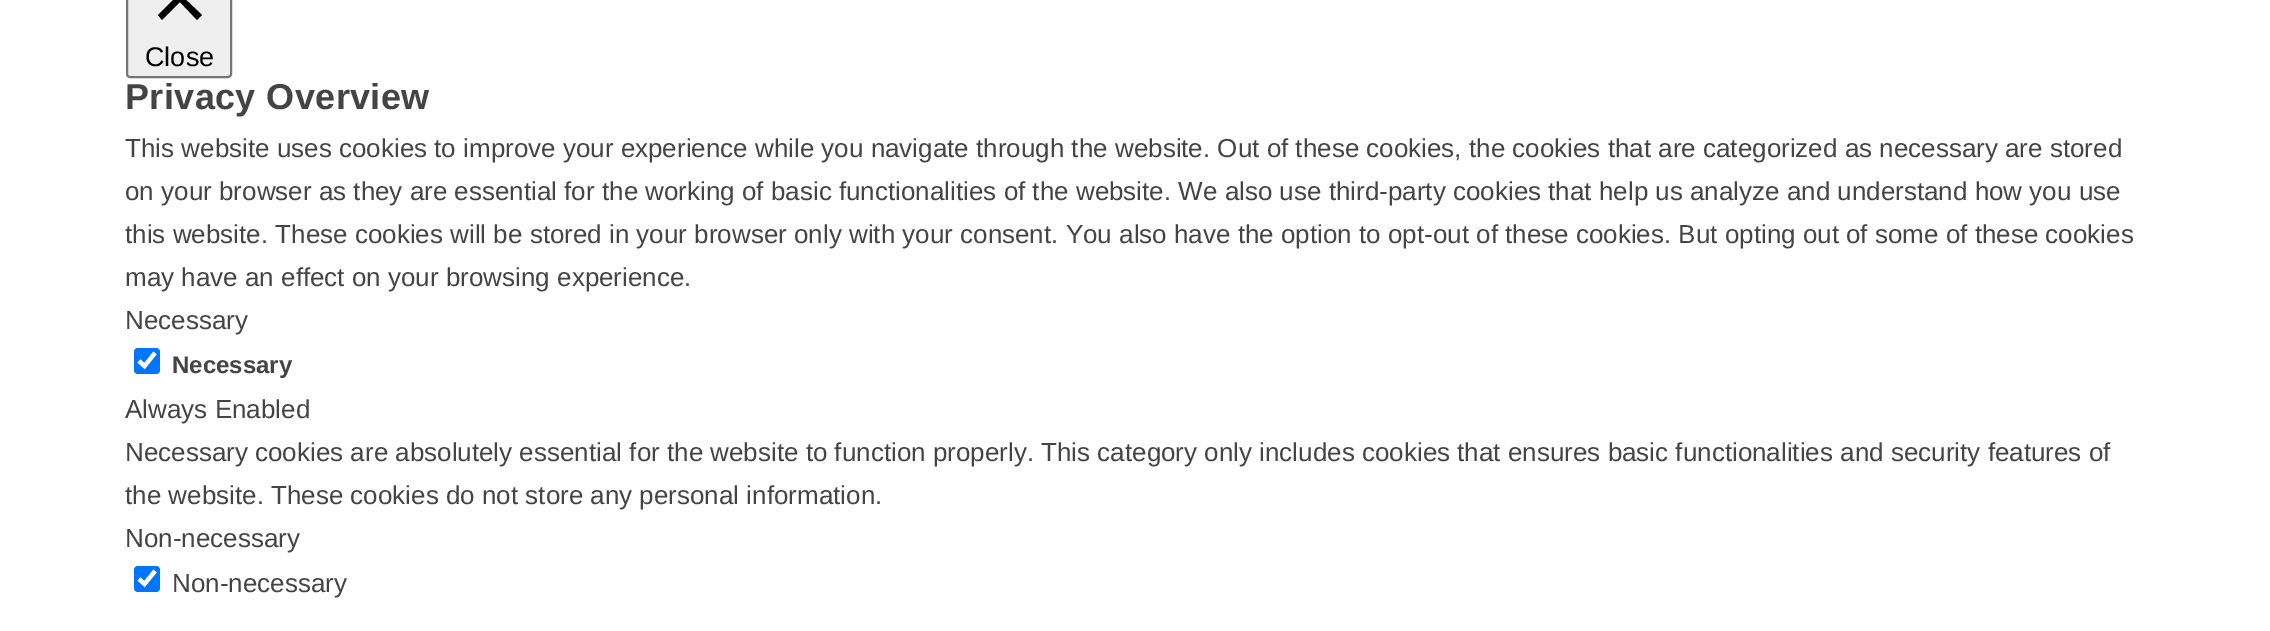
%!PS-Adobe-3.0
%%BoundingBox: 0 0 2270 631
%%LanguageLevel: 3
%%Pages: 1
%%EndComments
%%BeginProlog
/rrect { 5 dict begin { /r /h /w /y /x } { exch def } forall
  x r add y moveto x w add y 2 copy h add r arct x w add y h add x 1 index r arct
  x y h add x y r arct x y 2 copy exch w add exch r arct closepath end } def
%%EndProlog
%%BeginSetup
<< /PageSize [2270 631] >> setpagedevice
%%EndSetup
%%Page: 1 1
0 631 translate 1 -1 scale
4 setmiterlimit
1 setgray
0 0 2270 631 rectfill
0.937 setgray
127 -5 104 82 3 rrect gsave fill grestore
0.463 setgray
2 setlinewidth
stroke
0 setgray
newpath 202 -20 moveto 197 -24 lineto 180 -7 lineto 162 -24 lineto 158 -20 lineto 175 -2 lineto 158 15 lineto 162 20 lineto 180 2 lineto 197 20 lineto 202 15 lineto 184 -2 lineto closepath fill
0 0.459 1 setrgbcolor
134 348 26 26 4 rrect fill
1 setgray
4.2 setlinewidth
newpath 139 361 moveto 144.5 366 lineto 155 353 lineto stroke
0 0.459 1 setrgbcolor
134 566 26 26 4 rrect fill
1 setgray
newpath 139 579 moveto 144.5 584 lineto 155 571 lineto stroke
/LiberationSans-Regular [27 0 0 -27 0 0] selectfont
0 setgray
145 66 moveto (Close) show
/LiberationSans-Bold [36 0 0 -36 0 0] selectfont
0.267 setgray
125 109 moveto 0.4 0 (Privacy Overview) ashow
/LiberationSans-Regular [26 0 0 -26 0 0] selectfont
125 157 moveto (This website uses cookies to improve your experience while you navigate through the website. Out of these cookies, the cookies that are categorized as necessary are stored) show
125 200 moveto (on your browser as they are essential for the working of basic functionalities of the website. We also use third-party cookies that help us analyze and understand how you use) show
125 243 moveto (this website. These cookies will be stored in your browser only with your consent. You also have the option to opt-out of these cookies. But opting out of some of these cookies) show
125 286 moveto (may have an effect on your browsing experience.) show
125 329 moveto (Necessary) show
/LiberationSans-Bold [24 0 0 -24 0 0] selectfont
172 373 moveto (Necessary) show
/LiberationSans-Regular [26 0 0 -26 0 0] selectfont
125 418 moveto (Always Enabled) show
125 461 moveto (Necessary cookies are absolutely essential for the website to function properly. This category only includes cookies that ensures basic functionalities and security features of) show
125 504 moveto (the website. These cookies do not store any personal information.) show
125 547 moveto (Non-necessary) show
172 592 moveto (Non-necessary) show
showpage
%%EOF
